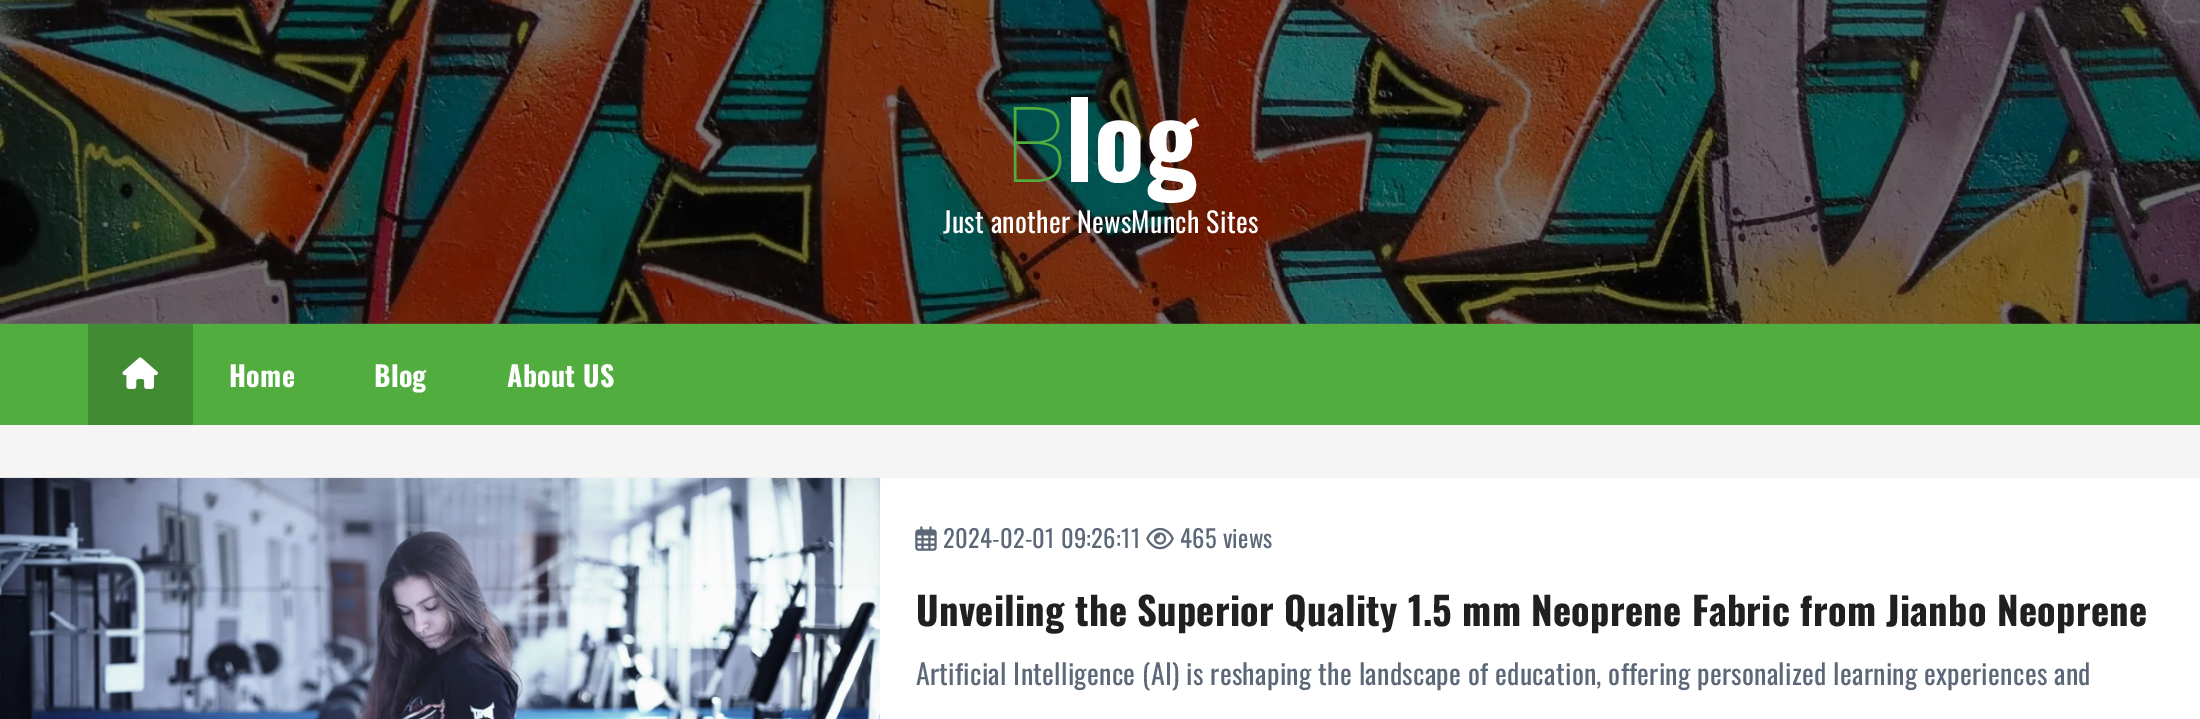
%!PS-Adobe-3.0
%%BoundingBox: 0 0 2200 719
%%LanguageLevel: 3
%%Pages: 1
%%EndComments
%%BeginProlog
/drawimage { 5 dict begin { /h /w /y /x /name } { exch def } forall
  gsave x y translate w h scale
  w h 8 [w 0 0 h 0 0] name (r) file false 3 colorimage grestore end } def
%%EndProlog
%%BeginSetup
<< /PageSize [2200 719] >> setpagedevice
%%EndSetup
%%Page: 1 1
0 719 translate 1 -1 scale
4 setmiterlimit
0.961 setgray
0 0 2200 719 rectfill
(images/1.raw) 0 0 2200 324 drawimage
0.314 0.678 0.243 setrgbcolor
0 324 2200 101 rectfill
0.255 0.549 0.196 setrgbcolor
88 324 105 101 rectfill
(images/2.raw) 122 357 36 32 drawimage
1 setgray
880 478 1320 241 rectfill
(images/3.raw) 0 477 881 242 drawimage
(images/4.raw) 915 526 22 25 drawimage
(images/5.raw) 1146 527 28 23 drawimage
/NotoSans-Thin [105 0 0 -105 0 0] selectfont
0.314 0.678 0.243 setrgbcolor
1003 182 moveto 0.28 0 (B) ashow
/Oswald-Bold [105 0 0 -105 0 0] selectfont
1 setgray
1065 182 moveto 0.28 0 (log) ashow
/Oswald-Regular [28 0 0 -28 0 0] selectfont
943 233 moveto 0.28 0 (Just another NewsMunch Sites) ashow
/Oswald-Bold [28 0 0 -28 0 0] selectfont
229 387 moveto 0.28 0 (Home) ashow
374 387 moveto 0.28 0 (Blog) ashow
507 387 moveto 0.28 0 (About US) ashow
/Oswald-Regular [24.5 0 0 -24.5 0 0] selectfont
0.361 0.404 0.467 setrgbcolor
943 548 moveto 0.28 0 (2024-02-01 09:26:11) ashow
1180 548 moveto 0.28 0 (465 views) ashow
/Oswald-Bold [38.5 0 0 -38.5 0 0] selectfont
0.125 setgray
916 626 moveto 0.28 0 (Unveiling the Superior Quality 1.5 mm Neoprene Fabric from Jianbo Neoprene) ashow
/Oswald-Regular [28 0 0 -28 0 0] selectfont
0.361 0.404 0.467 setrgbcolor
916 685 moveto 0.28 0 (Artificial Intelligence \(AI\) is reshaping the landscape of education, offering personalized learning experiences and) ashow
showpage
%%EOF
